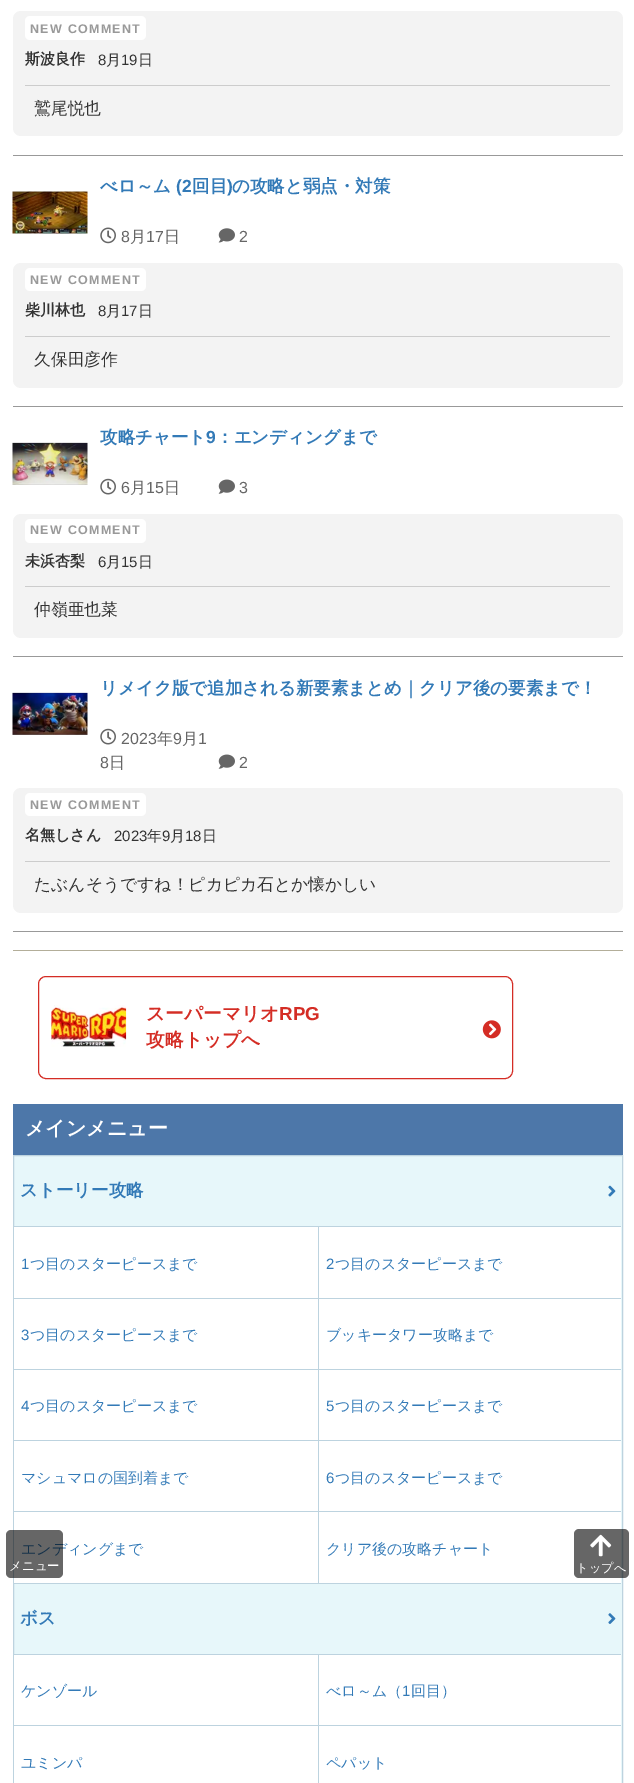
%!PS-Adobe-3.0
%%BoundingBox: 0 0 634 1783
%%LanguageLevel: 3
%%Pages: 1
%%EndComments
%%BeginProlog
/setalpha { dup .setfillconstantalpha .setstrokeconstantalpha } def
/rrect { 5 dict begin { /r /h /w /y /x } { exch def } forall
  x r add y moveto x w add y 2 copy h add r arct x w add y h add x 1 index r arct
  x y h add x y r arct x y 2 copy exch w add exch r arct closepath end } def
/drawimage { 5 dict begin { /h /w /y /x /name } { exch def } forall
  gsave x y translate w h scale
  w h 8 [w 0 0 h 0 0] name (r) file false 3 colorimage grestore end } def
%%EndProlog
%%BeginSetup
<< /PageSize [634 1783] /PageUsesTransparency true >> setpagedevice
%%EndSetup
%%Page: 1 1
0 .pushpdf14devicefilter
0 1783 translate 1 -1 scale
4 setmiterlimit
1 setgray
0 0 634 1783 rectfill
0.6 setgray
13 155 610 1 rectfill
0.953 setgray
13 11 610 125 8 rrect fill
1 setgray
25 16 121 24 5 rrect fill
0.8 setgray
25 85 585 1 rectfill
0.6 setgray
13 406 610 1 rectfill
(images/1.raw) 12 191 76 43 drawimage
(images/2.raw) 100 227 16 17 drawimage
(images/3.raw) 218 228 17 15 drawimage
0.953 setgray
13 263 610 125 8 rrect fill
1 setgray
25 268 121 23 5 rrect fill
0.8 setgray
25 336 585 1 rectfill
0.6 setgray
13 656 610 1 rectfill
(images/4.raw) 12 442 76 43 drawimage
(images/5.raw) 100 478 16 17 drawimage
(images/6.raw) 218 479 17 15 drawimage
0.953 setgray
13 514 610 124 8 rrect fill
1 setgray
25 519 121 24 5 rrect fill
0.8 setgray
25 586 585 1 rectfill
0.6 setgray
13 931 610 1 rectfill
(images/7.raw) 12 692 76 43 drawimage
(images/5.raw) 100 728 16 17 drawimage
(images/6.raw) 218 754 17 15 drawimage
0.953 setgray
13 788 610 125 8 rrect fill
1 setgray
25 793 121 23 5 rrect fill
0.8 setgray
25 861 585 1 rectfill
0.702 0.682 0.6 setrgbcolor
13 950 610 1 rectfill
0.831 0.176 0.145 setrgbcolor
38.5 976.5 474 102 7.5 rrect stroke
(images/8.raw) 51 1005 76 42 drawimage
(images/9.raw) 482 1020 19 19 drawimage
0.302 0.467 0.663 setrgbcolor
13 1104 610 51 rectfill
0.906 0.969 0.98 setrgbcolor
newpath 13.5 1155.5 moveto 622.5 1155.5 lineto 622.5 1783.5 lineto 13.5 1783.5 lineto closepath gsave fill grestore
0.741 0.827 0.875 setrgbcolor
stroke
14 1583 607 1 rectfill
(images/10.raw) 608 1185 8 12 drawimage
1 setgray
14 1227 607 356 rectfill
0.741 0.827 0.875 setrgbcolor
14 1226 607 1 rectfill
318 1226 1 72 rectfill
14 1298 607 1 rectfill
318 1298 1 71 rectfill
14 1369 607 1 rectfill
318 1369 1 71 rectfill
14 1440 607 1 rectfill
318 1440 1 71 rectfill
14 1511 607 1 rectfill
318 1511 1 72 rectfill
(images/11.raw) 608 1613 8 11 drawimage
1 setgray
14 1655 607 128 rectfill
0.741 0.827 0.875 setrgbcolor
14 1654 607 1 rectfill
318 1654 1 71 rectfill
14 1725 607 1 rectfill
318 1725 1 58 rectfill
0.6 setalpha
0 setgray
574 1529 55 49 5 rrect fill
1 setalpha
(images/12.raw) 590 1534 22 23 drawimage
/LiberationSans-Bold [12.5 0 0 -12.5 0 0] selectfont
0.6 setgray
30 33 moveto 1.25 0 (NEW COMMENT) ashow
/WenQuanYiZenHei-Bold [15 0 0 -15 0 0] selectfont
0.2 setgray
25 64 moveto (斯波良作) show
/LiberationSans-Regular [15 0 0 -15 0 0] selectfont
98 65 moveto (8) show
/WenQuanYiZenHei-Medium [15 0 0 -15 0 0] selectfont
106 65 moveto (月) show
/LiberationSans-Regular [15 0 0 -15 0 0] selectfont
121 65 moveto (19) show
/WenQuanYiZenHei-Medium [15 0 0 -15 0 0] selectfont
138 65 moveto (日) show
/WenQuanYiZenHei-Medium [16.8 0 0 -16.8 0 0] selectfont
34 114 moveto (鷲尾悦也) show
/WenQuanYiZenHei-Bold [17.5 0 0 -17.5 0 0] selectfont
0.2 0.478 0.718 setrgbcolor
100 192 moveto (べロ～ム) show
/LiberationSans-Bold [17.5 0 0 -17.5 0 0] selectfont
176 192 moveto (\(2) show
/WenQuanYiZenHei-Bold [17.5 0 0 -17.5 0 0] selectfont
192 192 moveto (回目) show
/LiberationSans-Bold [17.5 0 0 -17.5 0 0] selectfont
227 192 moveto (\)) show
/WenQuanYiZenHei-Bold [17.5 0 0 -17.5 0 0] selectfont
232 192 moveto (の攻略と弱点・対策) show
/LiberationSans-Regular [16 0 0 -16 0 0] selectfont
0.4 setgray
121 242 moveto (8) show
/WenQuanYiZenHei-Medium [16 0 0 -16 0 0] selectfont
130 242 moveto (月) show
/LiberationSans-Regular [16 0 0 -16 0 0] selectfont
146 242 moveto (17) show
/WenQuanYiZenHei-Medium [16 0 0 -16 0 0] selectfont
164 242 moveto (日) show
/LiberationSans-Regular [16 0 0 -16 0 0] selectfont
239 242 moveto (2) show
/LiberationSans-Bold [12.5 0 0 -12.5 0 0] selectfont
0.6 setgray
30 284 moveto 1.25 0 (NEW COMMENT) ashow
/WenQuanYiZenHei-Bold [15 0 0 -15 0 0] selectfont
0.2 setgray
25 315 moveto (柴川林也) show
/LiberationSans-Regular [15 0 0 -15 0 0] selectfont
98 316 moveto (8) show
/WenQuanYiZenHei-Medium [15 0 0 -15 0 0] selectfont
106 316 moveto (月) show
/LiberationSans-Regular [15 0 0 -15 0 0] selectfont
121 316 moveto (17) show
/WenQuanYiZenHei-Medium [15 0 0 -15 0 0] selectfont
138 316 moveto (日) show
/WenQuanYiZenHei-Medium [16.8 0 0 -16.8 0 0] selectfont
34 365 moveto (久保田彦作) show
/WenQuanYiZenHei-Bold [17.5 0 0 -17.5 0 0] selectfont
0.2 0.478 0.718 setrgbcolor
100 443 moveto (攻略チャート) show
/LiberationSans-Bold [17.5 0 0 -17.5 0 0] selectfont
206 443 moveto (9) show
/WenQuanYiZenHei-Bold [17.5 0 0 -17.5 0 0] selectfont
216 443 moveto (：エンディングまで) show
/LiberationSans-Regular [16 0 0 -16 0 0] selectfont
0.4 setgray
121 493 moveto (6) show
/WenQuanYiZenHei-Medium [16 0 0 -16 0 0] selectfont
130 493 moveto (月) show
/LiberationSans-Regular [16 0 0 -16 0 0] selectfont
146 493 moveto (15) show
/WenQuanYiZenHei-Medium [16 0 0 -16 0 0] selectfont
164 493 moveto (日) show
/LiberationSans-Regular [16 0 0 -16 0 0] selectfont
239 493 moveto (3) show
/LiberationSans-Bold [12.5 0 0 -12.5 0 0] selectfont
0.6 setgray
30 534 moveto 1.25 0 (NEW COMMENT) ashow
/WenQuanYiZenHei-Bold [15 0 0 -15 0 0] selectfont
0.2 setgray
25 566 moveto (未浜杏梨) show
/LiberationSans-Regular [15 0 0 -15 0 0] selectfont
98 567 moveto (6) show
/WenQuanYiZenHei-Medium [15 0 0 -15 0 0] selectfont
106 567 moveto (月) show
/LiberationSans-Regular [15 0 0 -15 0 0] selectfont
121 567 moveto (15) show
/WenQuanYiZenHei-Medium [15 0 0 -15 0 0] selectfont
138 567 moveto (日) show
/WenQuanYiZenHei-Medium [16.8 0 0 -16.8 0 0] selectfont
34 615 moveto (仲嶺亜也菜) show
/WenQuanYiZenHei-Bold [17.5 0 0 -17.5 0 0] selectfont
0.2 0.478 0.718 setrgbcolor
100 694 moveto (リメイク版で追加される新要素まとめ｜クリア後の要素まで！) show
/LiberationSans-Regular [16 0 0 -16 0 0] selectfont
0.4 setgray
121 744 moveto (2023) show
/WenQuanYiZenHei-Medium [16 0 0 -16 0 0] selectfont
157 744 moveto (年) show
/LiberationSans-Regular [16 0 0 -16 0 0] selectfont
173 744 moveto (9) show
/WenQuanYiZenHei-Medium [16 0 0 -16 0 0] selectfont
182 744 moveto (月) show
/LiberationSans-Regular [16 0 0 -16 0 0] selectfont
198 744 moveto (1) show
100 768 moveto (8) show
/WenQuanYiZenHei-Medium [16 0 0 -16 0 0] selectfont
109 768 moveto (日) show
/LiberationSans-Regular [16 0 0 -16 0 0] selectfont
239 768 moveto (2) show
/LiberationSans-Bold [12.5 0 0 -12.5 0 0] selectfont
0.6 setgray
30 809 moveto 1.25 0 (NEW COMMENT) ashow
/WenQuanYiZenHei-Bold [15 0 0 -15 0 0] selectfont
0.2 setgray
25 840 moveto (名無しさん) show
/LiberationSans-Regular [15 0 0 -15 0 0] selectfont
114 841 moveto (2023) show
/WenQuanYiZenHei-Medium [15 0 0 -15 0 0] selectfont
147 841 moveto (年) show
/LiberationSans-Regular [15 0 0 -15 0 0] selectfont
162 841 moveto (9) show
/WenQuanYiZenHei-Medium [15 0 0 -15 0 0] selectfont
170 841 moveto (月) show
/LiberationSans-Regular [15 0 0 -15 0 0] selectfont
185 841 moveto (18) show
/WenQuanYiZenHei-Medium [15 0 0 -15 0 0] selectfont
202 841 moveto (日) show
/WenQuanYiZenHei-Medium [16.8 0 0 -16.8 0 0] selectfont
34 890 moveto (たぶんそうですね！ピカピカ石とか懐かしい) show
/WenQuanYiZenHei-Bold [18.75 0 0 -18.75 0 0] selectfont
0.831 0.176 0.145 setrgbcolor
146 1020 moveto (スーパーマリオ) show
/LiberationSans-Bold [18.75 0 0 -18.75 0 0] selectfont
279 1020 moveto (RPG) show
/WenQuanYiZenHei-Bold [18.75 0 0 -18.75 0 0] selectfont
146 1046 moveto (攻略トップへ) show
/WenQuanYiZenHei-Bold [20 0 0 -20 0 0] selectfont
1 setgray
25 1135 moveto (メインメニュー) show
/WenQuanYiZenHei-Bold [17.5 0 0 -17.5 0 0] selectfont
0.2 0.478 0.718 setrgbcolor
20 1196 moveto (ストーリー攻略) show
/LiberationSans-Regular [15 0 0 -15 0 0] selectfont
21 1269 moveto (1) show
/WenQuanYiZenHei-Medium [15 0 0 -15 0 0] selectfont
30 1269 moveto (つ目のスターピースまで) show
/LiberationSans-Regular [15 0 0 -15 0 0] selectfont
326 1269 moveto (2) show
/WenQuanYiZenHei-Medium [15 0 0 -15 0 0] selectfont
335 1269 moveto (つ目のスターピースまで) show
/LiberationSans-Regular [15 0 0 -15 0 0] selectfont
21 1340 moveto (3) show
/WenQuanYiZenHei-Medium [15 0 0 -15 0 0] selectfont
30 1340 moveto (つ目のスターピースまで) show
326 1340 moveto (ブッキータワー攻略まで) show
/LiberationSans-Regular [15 0 0 -15 0 0] selectfont
21 1411 moveto (4) show
/WenQuanYiZenHei-Medium [15 0 0 -15 0 0] selectfont
30 1411 moveto (つ目のスターピースまで) show
/LiberationSans-Regular [15 0 0 -15 0 0] selectfont
326 1411 moveto (5) show
/WenQuanYiZenHei-Medium [15 0 0 -15 0 0] selectfont
335 1411 moveto (つ目のスターピースまで) show
21 1483 moveto (マシュマロの国到着まで) show
/LiberationSans-Regular [15 0 0 -15 0 0] selectfont
326 1483 moveto (6) show
/WenQuanYiZenHei-Medium [15 0 0 -15 0 0] selectfont
335 1483 moveto (つ目のスターピースまで) show
21 1554 moveto (エンディングまで) show
326 1554 moveto (クリア後の攻略チャート) show
/WenQuanYiZenHei-Bold [17.5 0 0 -17.5 0 0] selectfont
20 1624 moveto (ボス) show
/WenQuanYiZenHei-Medium [15 0 0 -15 0 0] selectfont
21 1696 moveto (ケンゾール) show
326 1696 moveto (べロ～ム（) show
/LiberationSans-Regular [15 0 0 -15 0 0] selectfont
402 1696 moveto (1) show
/WenQuanYiZenHei-Medium [15 0 0 -15 0 0] selectfont
411 1696 moveto (回目）) show
21 1768 moveto (ユミンパ) show
326 1768 moveto (ペパット) show
0.6 setalpha
0 setgray
6 1530 57 48 5 rrect fill
/WenQuanYiZenHei-Medium [12.5 0 0 -12.5 0 0] selectfont
1 setalpha
1 setgray
9 1570 moveto (メニュー) show
/WenQuanYiZenHei-Medium [12.25 0 0 -12.25 0 0] selectfont
576 1572 moveto (トップへ) show
.poppdf14devicefilter showpage
%%EOF
